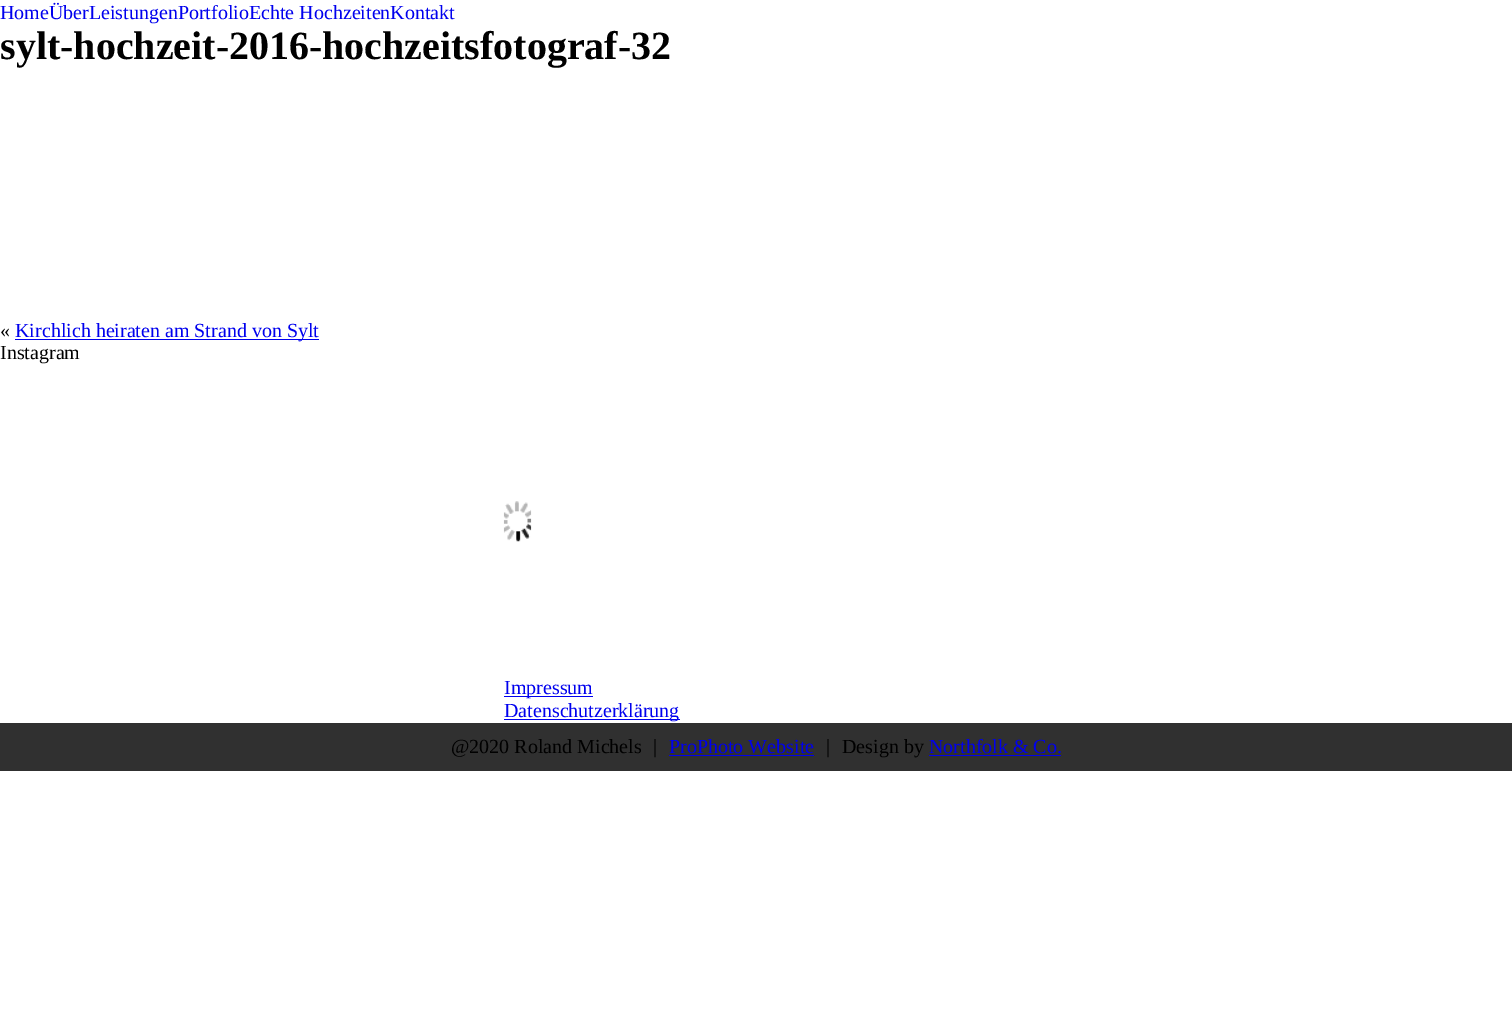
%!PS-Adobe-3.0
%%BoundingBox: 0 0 1512 1034
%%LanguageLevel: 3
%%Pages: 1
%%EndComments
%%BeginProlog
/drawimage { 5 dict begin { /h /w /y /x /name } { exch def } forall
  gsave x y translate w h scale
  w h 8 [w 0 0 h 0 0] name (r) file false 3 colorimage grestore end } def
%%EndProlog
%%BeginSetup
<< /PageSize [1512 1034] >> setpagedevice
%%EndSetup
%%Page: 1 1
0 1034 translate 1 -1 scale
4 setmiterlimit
1 setgray
0 0 1512 1034 rectfill
0 0 0.933 setrgbcolor
15 339 304 1 rectfill
(images/1.raw) 503 501 29 41 drawimage
504 696 89 1 rectfill
504 719 176 1 rectfill
0.188 setgray
0 723 1512 48 rectfill
0 0 0.933 setrgbcolor
669 755 145 1 rectfill
929 755 132 1 rectfill
/LiberationSerif-Regular [20 0 0 -20 0 0] selectfont
0 19 moveto (HomeÜberLeistungenPortfolioEchte HochzeitenKontakt) show
/LiberationSerif-Bold [40 0 0 -40 0 0] selectfont
0 setgray
0 59 moveto (sylt-hochzeit-2016-hochzeitsfotograf-32) show
/LiberationSerif-Regular [20 0 0 -20 0 0] selectfont
0 337 moveto («) show
0 0 0.933 setrgbcolor
15 337 moveto (Kirchlich heiraten am Strand von Sylt) show
0 setgray
0 359 moveto (Instagram) show
0 0 0.933 setrgbcolor
504 694 moveto (Impressum) show
504 717 moveto (Datenschutzerklärung) show
0 setgray
451 753 moveto (@2020 Roland Michels) show
653 753 moveto (|) show
0 0 0.933 setrgbcolor
669 753 moveto (ProPhoto Website) show
0 setgray
826 753 moveto (|) show
842 753 moveto (Design by) show
0 0 0.933 setrgbcolor
929 753 moveto (Northfolk & Co.) show
showpage
%%EOF
